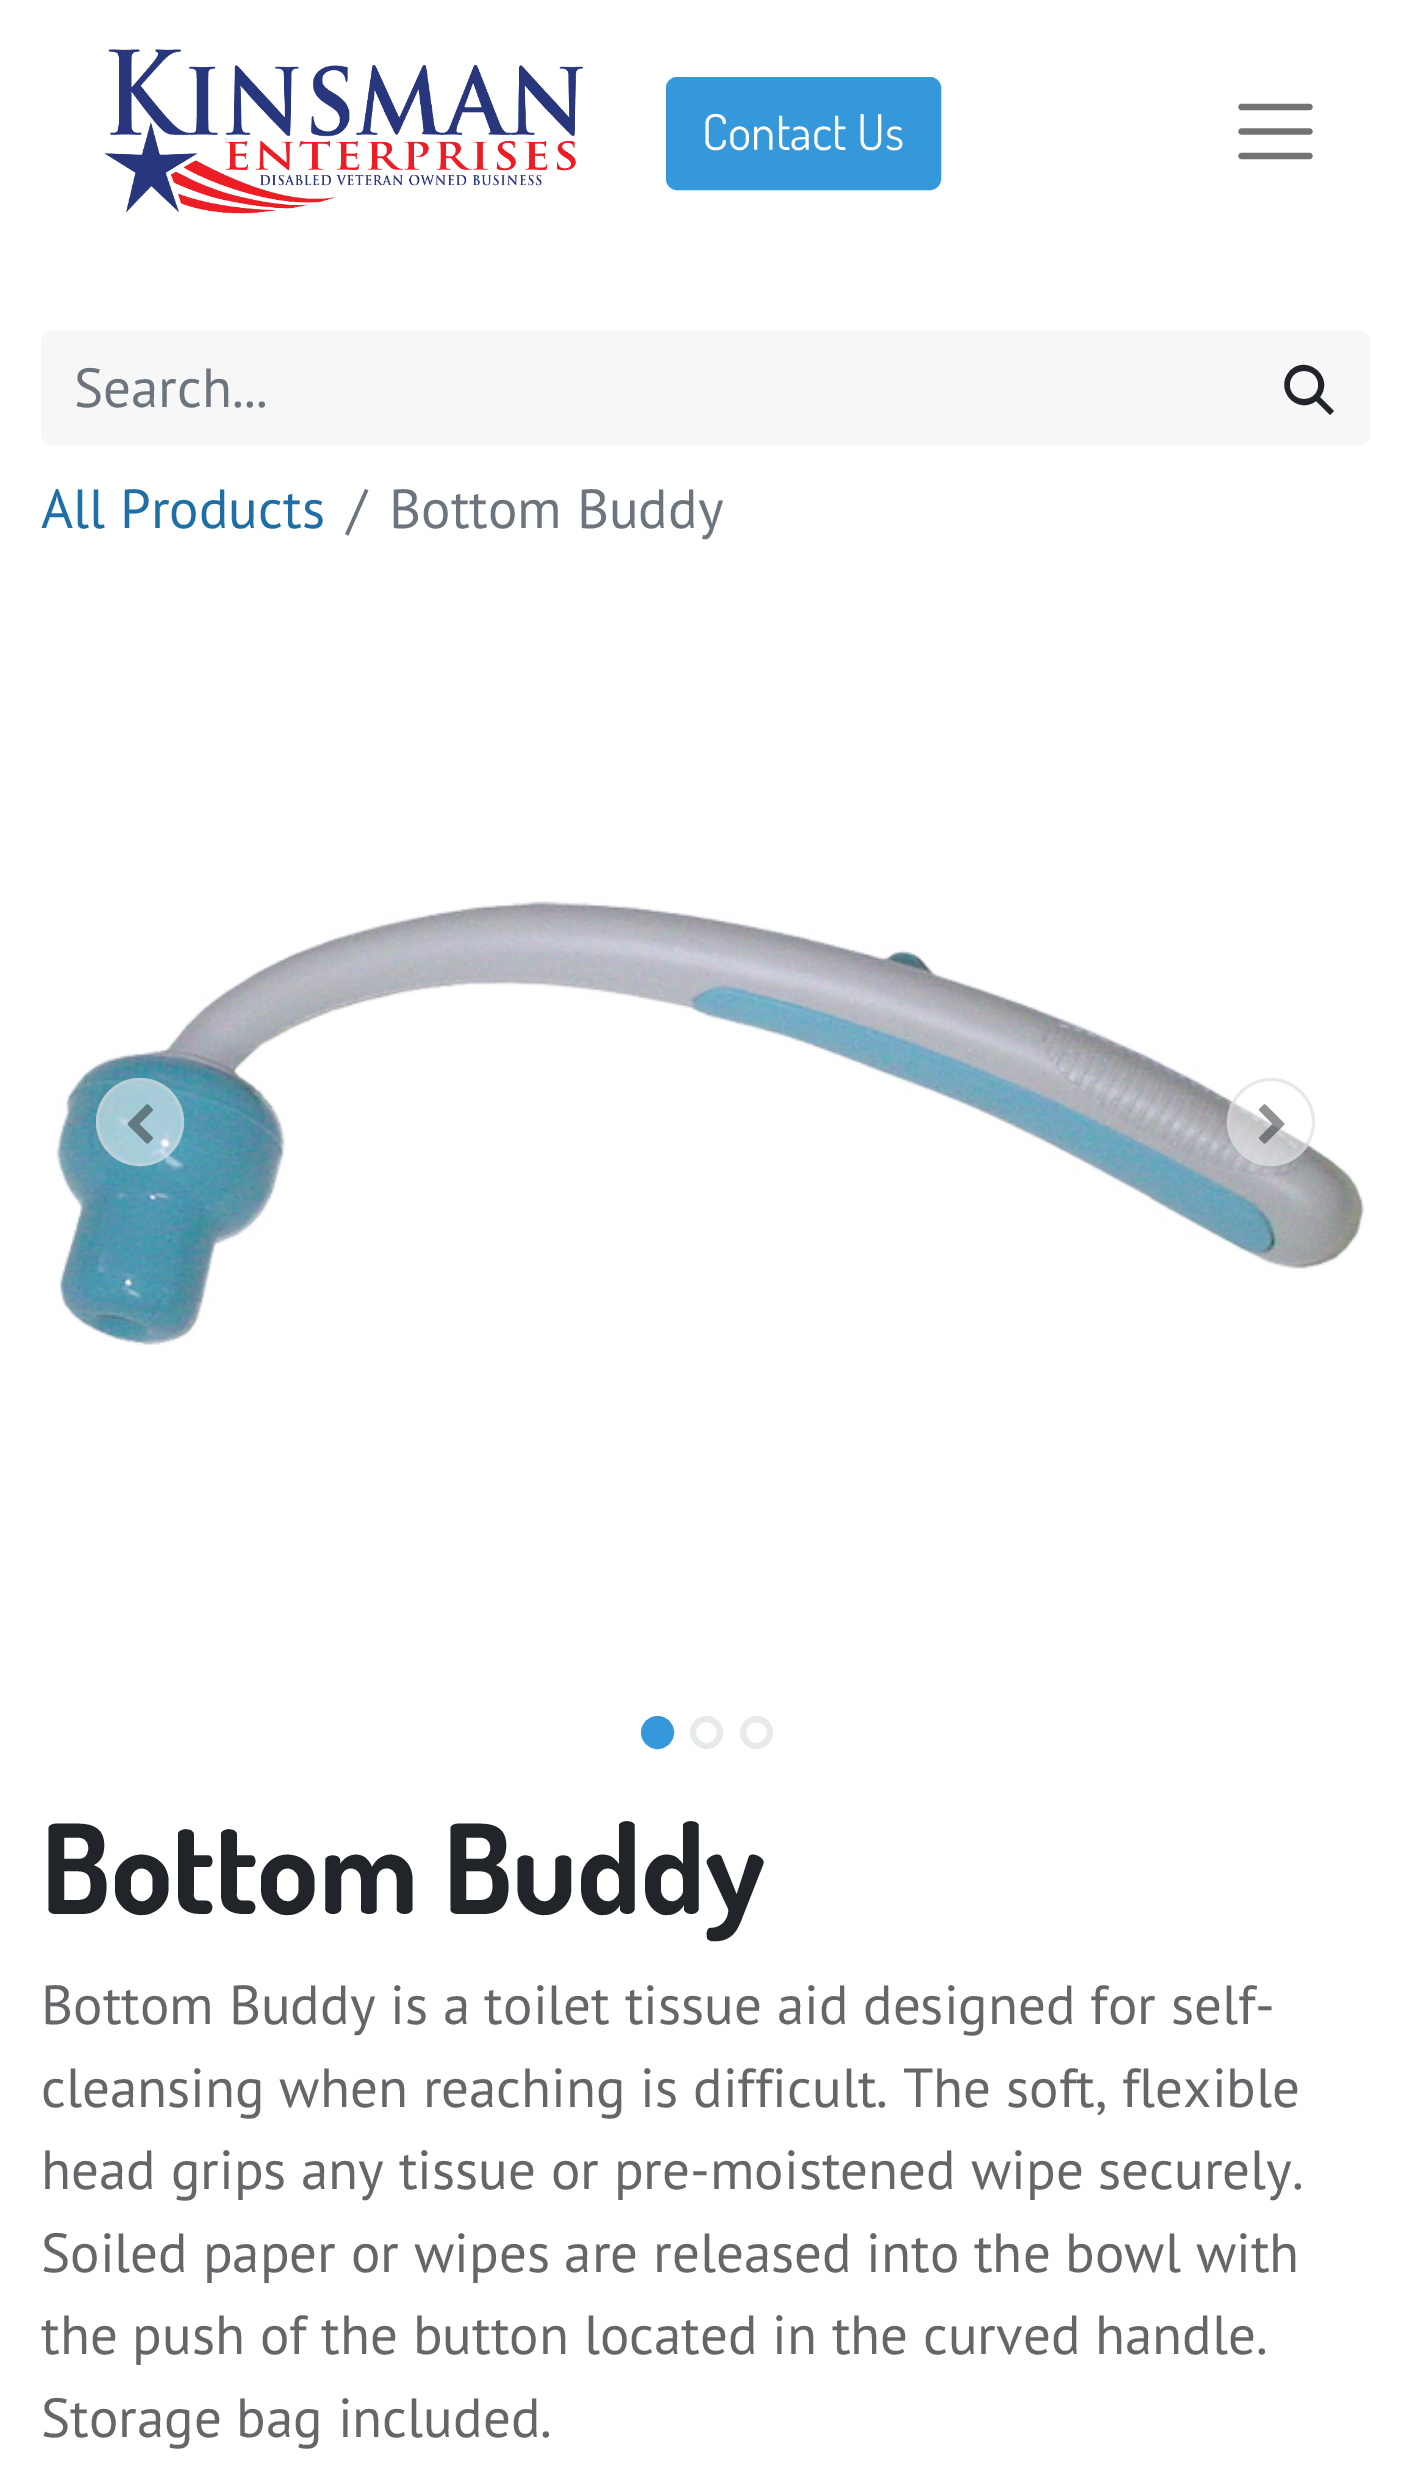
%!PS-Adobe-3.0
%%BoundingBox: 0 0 1410 2474
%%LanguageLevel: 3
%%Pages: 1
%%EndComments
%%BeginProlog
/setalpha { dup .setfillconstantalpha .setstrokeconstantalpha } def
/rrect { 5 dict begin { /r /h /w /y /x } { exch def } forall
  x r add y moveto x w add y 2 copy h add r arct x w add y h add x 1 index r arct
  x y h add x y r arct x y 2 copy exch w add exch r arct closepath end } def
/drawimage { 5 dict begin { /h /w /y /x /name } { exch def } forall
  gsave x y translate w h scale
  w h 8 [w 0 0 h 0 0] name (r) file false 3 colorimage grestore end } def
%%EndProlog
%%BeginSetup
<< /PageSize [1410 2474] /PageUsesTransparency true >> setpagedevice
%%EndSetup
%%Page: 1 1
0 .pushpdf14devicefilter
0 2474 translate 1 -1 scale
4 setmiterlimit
1 setgray
0 0 1410 2474 rectfill
(images/1.raw) 104 49 479 165 drawimage
0.204 0.596 0.859 setrgbcolor
667.5 78.5 272 110 9.5 rrect gsave fill grestore
3 setlinewidth
stroke
0.451 setgray
6.2 setlinewidth
1 setlinecap
newpath 1241.5 107 moveto 1309.5 107 lineto 1241.5 131.5 moveto 1309.5 131.5 lineto 1241.5 156 moveto 1309.5 156 lineto stroke
0.969 setgray
newpath 52 330 moveto 1249 330 lineto 1249 446 lineto 52 446 lineto 46 446 41 441 41 435 curveto 41 341 lineto 41 335 46 330 52 330 curveto closepath fill
newpath 1249 330 moveto 1359 330 lineto 1365 330 1370 335 1370 341 curveto 1370 435 lineto 1370 441 1365 446 1359 446 curveto 1249 446 lineto closepath fill
0.129 0.145 0.161 setrgbcolor
newpath 1289 372 moveto 1305 353 1335 376 1320 397 curveto 1334 411 lineto 1330 415 lineto 1316 401 lineto 1298 415 1274 391 1289 372 curveto closepath 1304 371 moveto 1285 371 1285 399 1304 399 curveto 1323 399 1323 371 1304 371 curveto closepath fill
(images/2.raw) 56 901 1308 444 drawimage
0.5 setalpha
1 setgray
newpath 140 1122 44 0 360 arc closepath fill
0.808 0.831 0.855 setrgbcolor
3 setlinewidth
0 setlinecap
newpath 140 1122 42.5 0 360 arc closepath stroke
1 setalpha
(images/3.raw) 127 1104 26 40 drawimage
0.5 setalpha
1 setgray
newpath 1271 1122 44 0 360 arc closepath fill
0.808 0.831 0.855 setrgbcolor
newpath 1271 1122 42.5 0 360 arc closepath stroke
1 setalpha
(images/4.raw) 1259 1104 26 40 drawimage
0.204 0.596 0.859 setrgbcolor
newpath 657.5 1732.5 13.5 0 360 arc closepath gsave fill grestore
6 setlinewidth
stroke
0.906 0.918 0.929 setrgbcolor
newpath 706.5 1732.5 13.5 0 360 arc closepath stroke
newpath 756.5 1732.5 13.5 0 360 arc closepath stroke
/Dosis-Regular [49.5 0 0 -49.5 0 0] selectfont
1 setgray
702 150 moveto (Contact Us) show
/PTSans-Regular [55 0 0 -55 0 0] selectfont
0.424 0.459 0.49 setrgbcolor
74 407 moveto (Search...) show
0.114 0.435 0.647 setrgbcolor
41 528 moveto (All Products) show
0.424 0.459 0.49 setrgbcolor
347 528 moveto (/) show
389 528 moveto (Bottom Buddy) show
/Dosis-Bold [123.75 0 0 -123.75 0 0] selectfont
0.129 0.145 0.161 setrgbcolor
41 1914 moveto (Bottom Buddy) show
/PTSans-Regular [55 0 0 -55 0 0] selectfont
0.392 0.4 0.412 setrgbcolor
41 2024 moveto (Bottom Buddy is a toilet tissue aid designed for self-) show
41 2107 moveto (cleansing when reaching is difficult. The soft, flexible) show
41 2189 moveto (head grips any tissue or pre-moistened wipe securely.) show
41 2272 moveto (Soiled paper or wipes are released into the bowl with) show
41 2354 moveto (the push of the button located in the curved handle.) show
41 2437 moveto (Storage bag included.) show
.poppdf14devicefilter showpage
%%EOF
